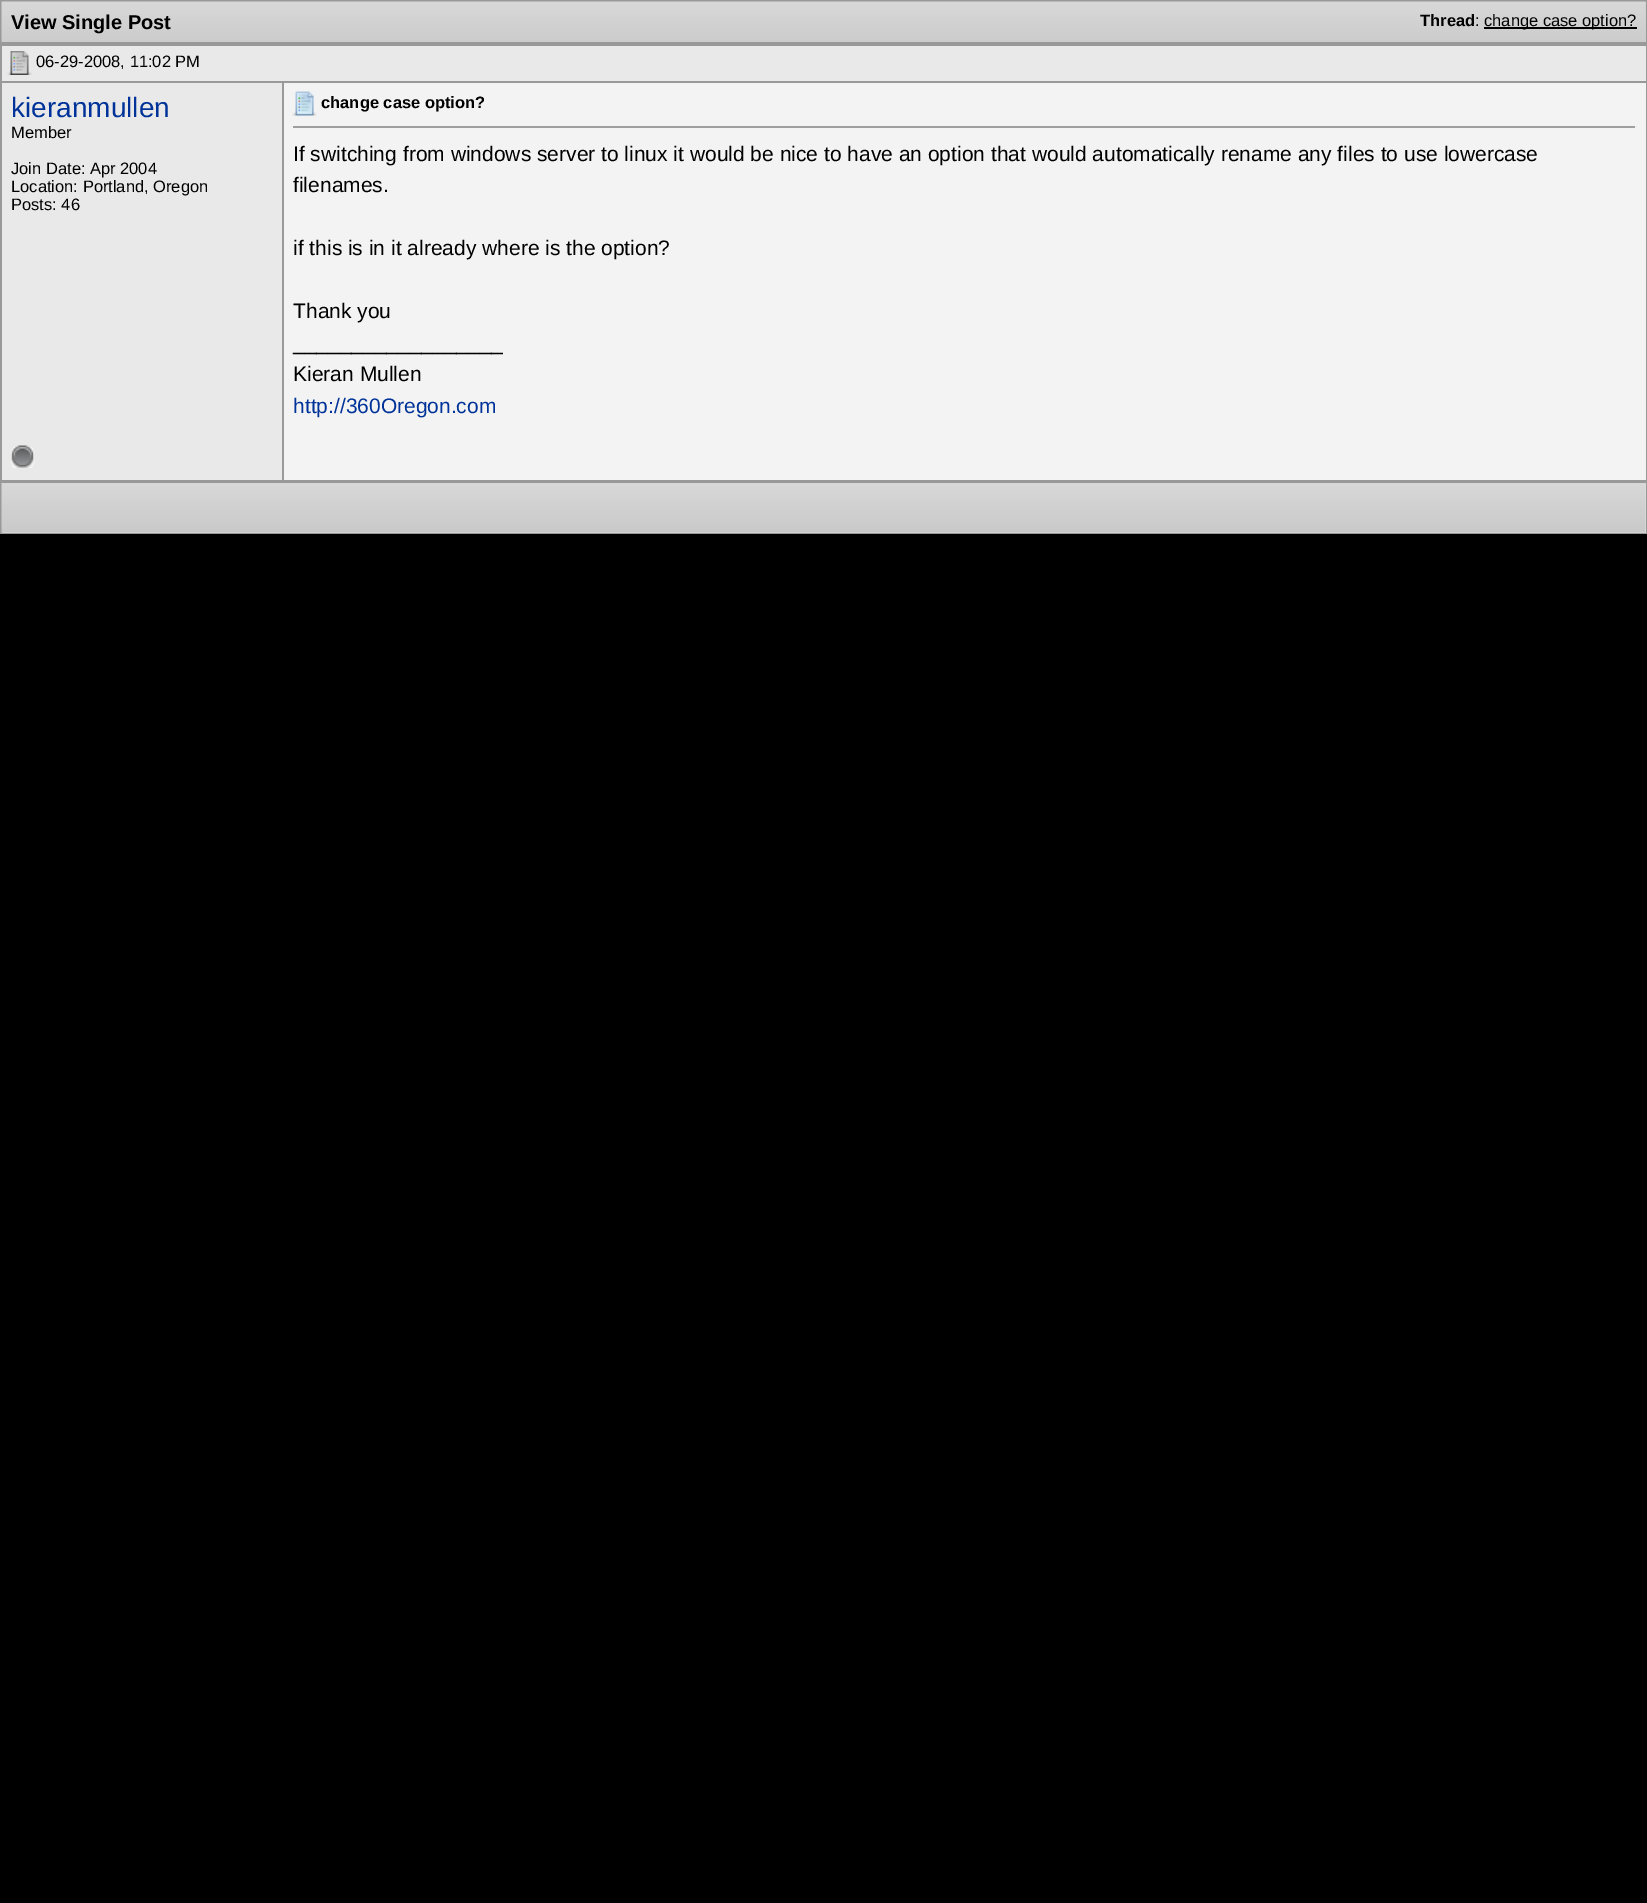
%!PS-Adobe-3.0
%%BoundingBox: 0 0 1647 1903
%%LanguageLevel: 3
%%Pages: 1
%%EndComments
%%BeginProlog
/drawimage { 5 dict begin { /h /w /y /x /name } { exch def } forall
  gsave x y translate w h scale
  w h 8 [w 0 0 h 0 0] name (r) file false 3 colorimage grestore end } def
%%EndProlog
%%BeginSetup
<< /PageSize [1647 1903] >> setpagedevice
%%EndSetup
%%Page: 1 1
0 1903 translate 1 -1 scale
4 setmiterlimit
0 setgray
0 0 1647 1903 rectfill
0.6 setgray
0 0 1647 44 rectfill
0.8 setgray
1645 2 1 40 rectfill
(images/1.raw) 1 1 1645 41 drawimage
0 setgray
1484 27 153 2 rectfill
0.914 setgray
2 46 1644 35 rectfill
0.6 setgray
0 44 1647 2 rectfill
0 81 284 2 rectfill
0 44 2 387 rectfill
(images/2.raw) 7 51 25 24 drawimage
1646 44 1 438 rectfill
284 81 1363 2 rectfill
0.914 setgray
2 83 280 397 rectfill
0.6 setgray
282 83 2 399 rectfill
0.953 setgray
284 83 1362 397 rectfill
(images/3.raw) 292 91 25 25 drawimage
0.624 setgray
293 126 1344 2 rectfill
0.933 setgray
1635 126 2 2 rectfill
0.6 setgray
0 480 1647 54 rectfill
0 431 2 51 rectfill
(images/4.raw) 10 445 25 23 drawimage
0.882 0.882 0.886 setrgbcolor
2 483 1644 50 rectfill
(images/5.raw) 1 483 1645 50 drawimage
/LiberationSans-Bold [20 0 0 -20 0 0] selectfont
0 setgray
11 29 moveto (View Single Post) show
/LiberationSans-Bold [16.5 0 0 -16.5 0 0] selectfont
1420 26 moveto (Thread) show
/LiberationSans-Regular [16.5 0 0 -16.5 0 0] selectfont
1475 26 moveto (:) show
1484 26 moveto (change case option?) show
36 67 moveto (06-29-2008, 11:02 PM) show
/LiberationSans-Regular [28 0 0 -28 0 0] selectfont
0 0.2 0.6 setrgbcolor
11 117 moveto (kieranmullen) show
/LiberationSans-Regular [16.5 0 0 -16.5 0 0] selectfont
0 setgray
11 138 moveto (Member) show
11 174 moveto (Join Date: Apr 2004) show
11 192 moveto (Location: Portland, Oregon) show
11 210 moveto (Posts: 46) show
/LiberationSans-Bold [16.5 0 0 -16.5 0 0] selectfont
321 108 moveto (change case option?) show
/LiberationSans-Regular [21 0 0 -21 0 0] selectfont
293 161 moveto (If switching from windows server to linux it would be nice to have an option that would automatically rename any files to use lowercase) show
293 192 moveto (filenames.) show
293 255 moveto (if this is in it already where is the option?) show
293 318 moveto (Thank you) show
293 350 moveto (__________________) show
293 381 moveto (Kieran Mullen) show
0 0.2 0.6 setrgbcolor
293 413 moveto (http://360Oregon.com) show
showpage
%%EOF
